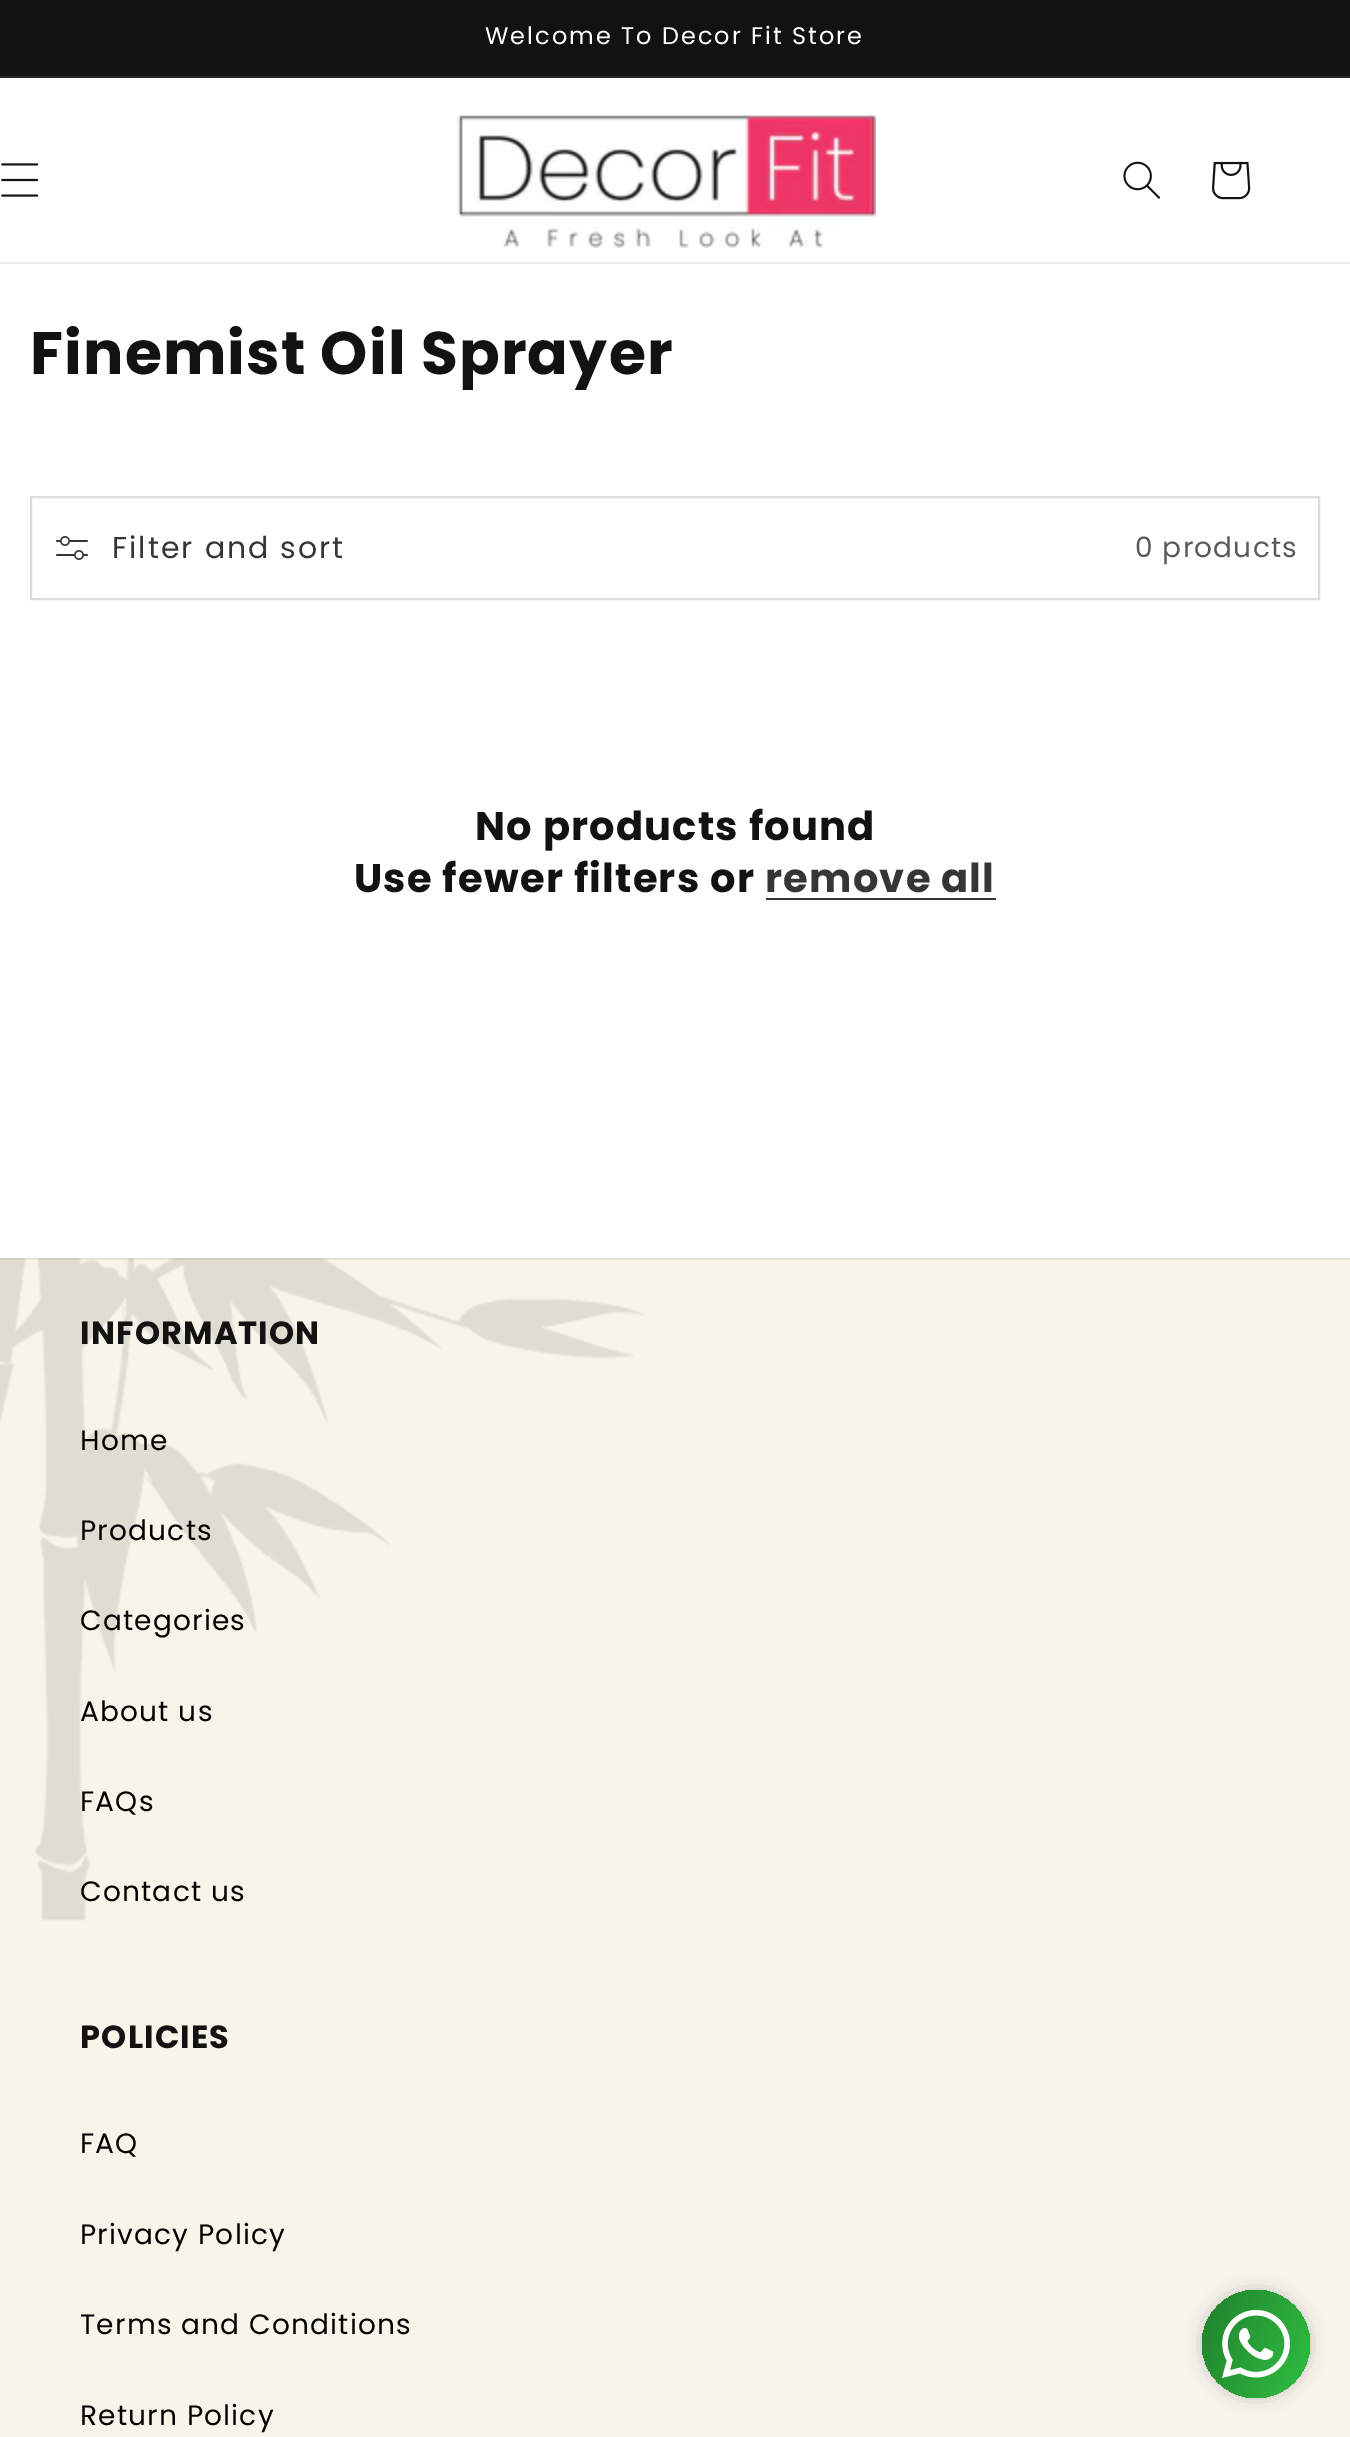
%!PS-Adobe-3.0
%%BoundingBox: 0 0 1350 2437
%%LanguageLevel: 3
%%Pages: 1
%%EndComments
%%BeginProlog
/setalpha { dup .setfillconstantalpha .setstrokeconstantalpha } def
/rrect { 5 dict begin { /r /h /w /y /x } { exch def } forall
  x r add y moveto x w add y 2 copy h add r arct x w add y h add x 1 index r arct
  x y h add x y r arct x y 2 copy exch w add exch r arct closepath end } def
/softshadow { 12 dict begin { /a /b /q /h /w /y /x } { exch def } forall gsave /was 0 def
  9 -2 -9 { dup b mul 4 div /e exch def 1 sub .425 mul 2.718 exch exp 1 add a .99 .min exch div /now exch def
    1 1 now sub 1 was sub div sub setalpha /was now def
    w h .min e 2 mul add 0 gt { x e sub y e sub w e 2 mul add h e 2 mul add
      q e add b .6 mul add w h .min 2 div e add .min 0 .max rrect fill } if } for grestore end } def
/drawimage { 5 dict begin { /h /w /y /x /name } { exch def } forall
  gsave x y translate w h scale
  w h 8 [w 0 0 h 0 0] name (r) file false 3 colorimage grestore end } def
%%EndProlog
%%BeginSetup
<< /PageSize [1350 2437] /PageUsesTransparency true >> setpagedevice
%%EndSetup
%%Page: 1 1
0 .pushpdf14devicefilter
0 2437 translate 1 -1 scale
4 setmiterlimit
1 setgray
0 0 1350 2437 rectfill
0.071 setgray
0 0 1350 76 rectfill
0.145 setgray
0 76 1350 2 rectfill
0.925 setgray
0 262 1350 2 rectfill
(images/1.raw) 1 163 38 34 drawimage
(images/2.raw) 457 114 419 134 drawimage
(images/3.raw) 1123 161 37 38 drawimage
(images/4.raw) 1212 161 39 39 drawimage
0.867 setgray
2 setlinewidth
31 497 1288 102 rectstroke
(images/5.raw) 56 536 32 24 drawimage
0.212 setgray
766 898 230 2 rectfill
0.976 0.957 0.914 setrgbcolor
0 1258 1350 1179 rectfill
(images/6.raw) 0 1258 644 663 drawimage
0.08 setalpha
0.071 setgray
0 1258 1350 2 rectfill
1 setalpha
0.761 setgray
1202 2290 108 108 54 8 1 softshadow
gsave newpath 1256 2344 54 0 360 arc closepath clip newpath
<< /ShadingType 2 /ColorSpace /DeviceRGB /Coords [1191 2317 1321 2371] /Extend [true true] /Function << /FunctionType 2 /Domain [0 1] /C0 [0.125 0.502 0.173] /C1 [0.188 0.749 0.259] /N 1 >> >> shfill grestore
(images/7.raw) 1222 2310 68 68 drawimage
/Poppins-Regular [24 0 0 -24 0 0] selectfont
1 setgray
485 44 moveto 2 0 (Welcome To Decor Fit Store) ashow
/Poppins-Bold [60 0 0 -60 0 0] selectfont
0.071 setgray
30 374 moveto 1.2 0 (Finemist Oil Sprayer) ashow
/Poppins-Regular [30 0 0 -30 0 0] selectfont
0.212 setgray
112 558 moveto 2 0 (Filter and sort) ashow
/Poppins-Regular [28 0 0 -28 0 0] selectfont
0.349 setgray
1135 557 moveto 1.2 0 (0 products) ashow
/Poppins-Bold [40 0 0 -40 0 0] selectfont
0.071 setgray
475 840 moveto 1.2 0 (No products found) ashow
354 892 moveto 1.2 0 (Use fewer filters or) ashow
0.212 setgray
765 892 moveto 1.2 0 (remove all) ashow
/Poppins-Bold [32 0 0 -32 0 0] selectfont
0.071 setgray
80 1344 moveto 1.2 0 (INFORMATION) ashow
/Poppins-Regular [28 0 0 -28 0 0] selectfont
0 setgray
80 1450 moveto 1.2 0 (Home) ashow
80 1540 moveto 1.2 0 (Products) ashow
80 1630 moveto 1.2 0 (Categories) ashow
80 1721 moveto 1.2 0 (About us) ashow
80 1811 moveto 1.2 0 (FAQs) ashow
80 1901 moveto 1.2 0 (Contact us) ashow
/Poppins-Bold [32 0 0 -32 0 0] selectfont
0.071 setgray
80 2048 moveto 1.2 0 (POLICIES) ashow
/Poppins-Regular [28 0 0 -28 0 0] selectfont
0 setgray
80 2153 moveto 1.2 0 (FAQ) ashow
80 2244 moveto 1.2 0 (Privacy Policy) ashow
80 2334 moveto 1.2 0 (Terms and Conditions) ashow
80 2425 moveto 1.2 0 (Return Policy) ashow
.poppdf14devicefilter showpage
%%EOF
